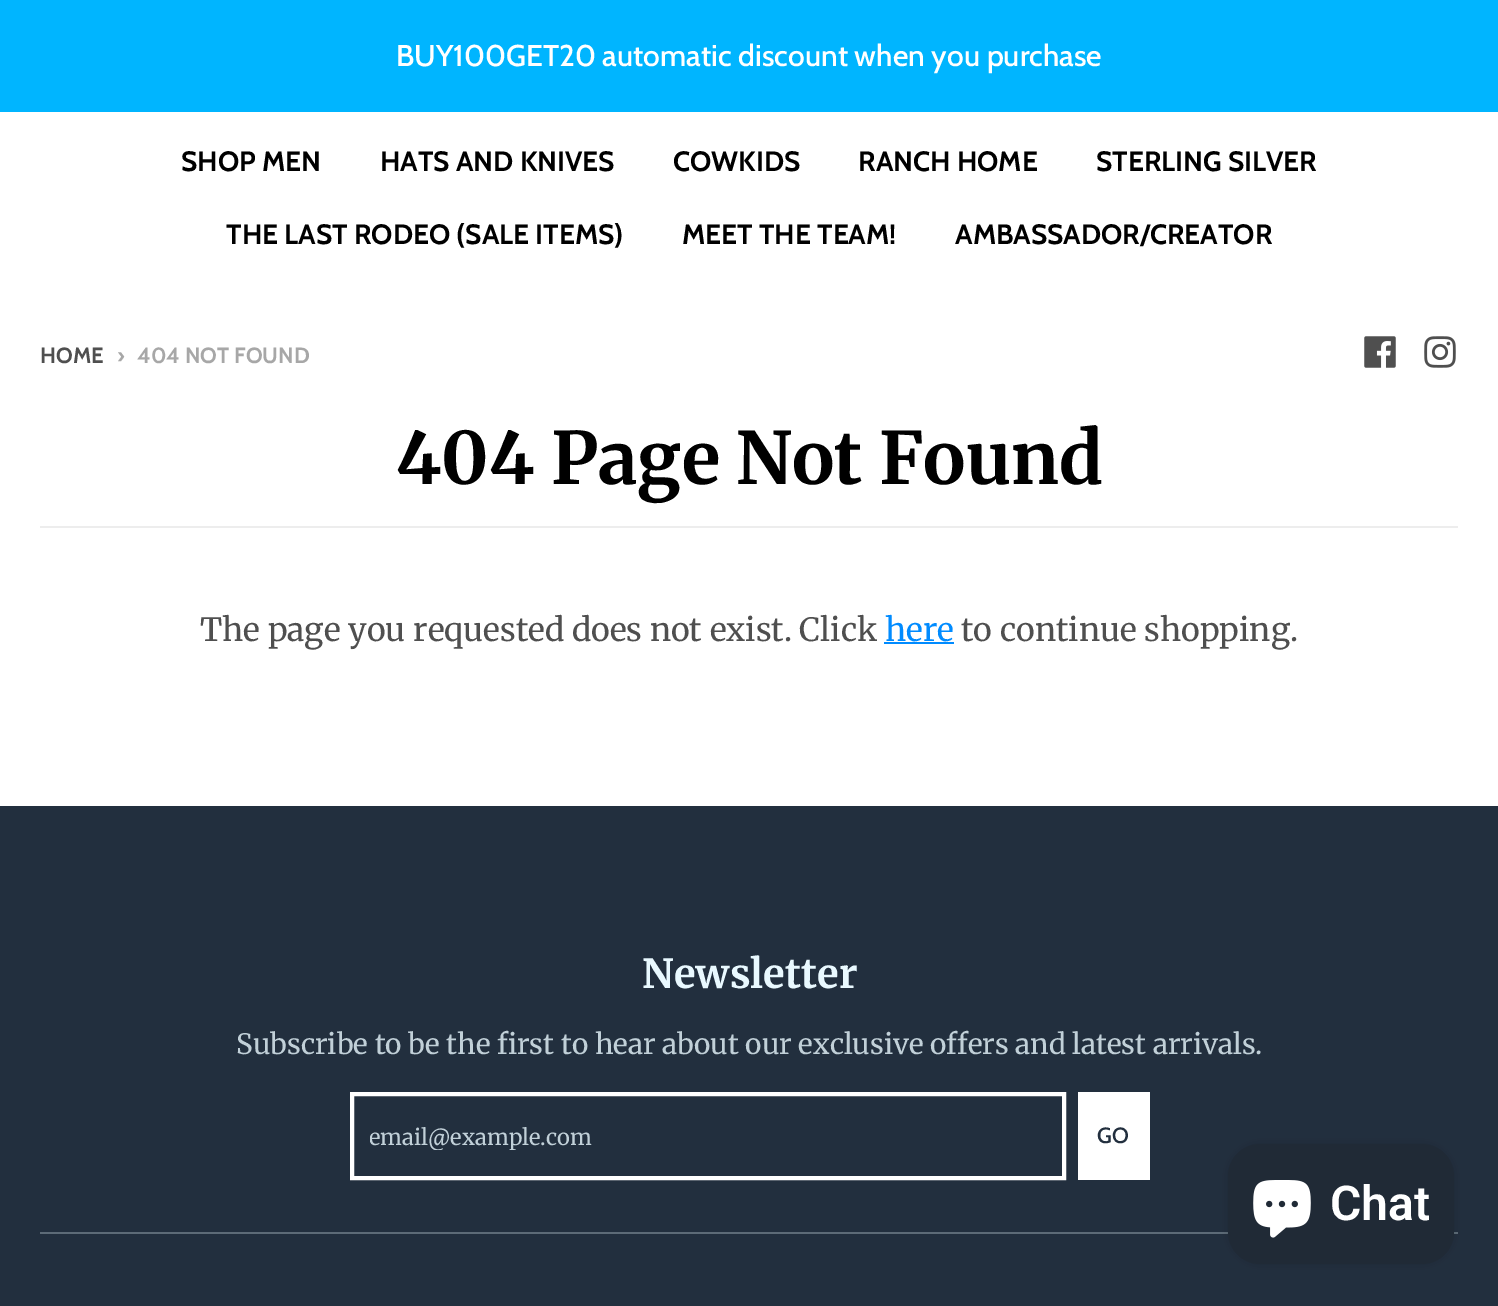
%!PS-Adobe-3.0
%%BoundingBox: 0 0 1498 1306
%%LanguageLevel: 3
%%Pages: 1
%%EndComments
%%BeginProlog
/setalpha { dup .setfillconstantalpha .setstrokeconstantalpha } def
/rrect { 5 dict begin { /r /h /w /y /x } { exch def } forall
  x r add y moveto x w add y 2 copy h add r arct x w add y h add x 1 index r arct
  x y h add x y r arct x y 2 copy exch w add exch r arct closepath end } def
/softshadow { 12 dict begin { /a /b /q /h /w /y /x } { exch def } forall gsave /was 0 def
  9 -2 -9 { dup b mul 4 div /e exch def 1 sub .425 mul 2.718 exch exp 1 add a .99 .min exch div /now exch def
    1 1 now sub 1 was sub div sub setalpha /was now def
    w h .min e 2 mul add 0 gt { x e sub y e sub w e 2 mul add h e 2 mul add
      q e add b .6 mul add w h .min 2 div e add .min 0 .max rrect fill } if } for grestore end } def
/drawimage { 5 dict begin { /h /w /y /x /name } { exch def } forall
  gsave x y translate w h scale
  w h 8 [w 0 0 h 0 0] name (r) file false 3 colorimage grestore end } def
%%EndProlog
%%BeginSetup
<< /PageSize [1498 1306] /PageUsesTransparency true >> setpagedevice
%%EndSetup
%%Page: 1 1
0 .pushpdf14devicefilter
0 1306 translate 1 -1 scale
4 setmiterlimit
1 setgray
0 0 1498 1306 rectfill
0 0.71 1 setrgbcolor
0 0 1498 112 rectfill
(images/1.raw) 1364 336 32 32 drawimage
(images/2.raw) 1424 336 32 32 drawimage
0.929 setgray
40 526 1418 2 rectfill
0 0.545 1 setrgbcolor
884 642 70 2 rectfill
0.133 0.184 0.243 setrgbcolor
0 806 1498 500 rectfill
0.365 0.42 0.467 setrgbcolor
40 1232 1418 2 rectfill
1 setgray
4 setlinewidth
352 1094 712 84 rectstroke
1078 1092 72 88 rectfill
0 setgray
1228 1144 226 120 32 5 0.15 softshadow
0.125 0.165 0.212 setrgbcolor
1228 1144 226 120 32 rrect fill
(images/3.raw) 1253 1180 58 58 drawimage
/Cabin-Medium [30 0 0 -30 0 0] selectfont
1 setgray
396 66 moveto (BUY100GET20 automatic discount when you purchase) show
/Cabin-Bold [28 0 0 -28 0 0] selectfont
0 setgray
181 171 moveto (SHOP MEN) show
380 171 moveto (HATS AND KNIVES) show
673 171 moveto (COWKIDS) show
858 171 moveto (RANCH HOME) show
1096 171 moveto (STERLING SILVER) show
226 244 moveto (THE LAST RODEO \(SALE ITEMS\)) show
682 244 moveto (MEET THE TEAM!) show
955 244 moveto (AMBASSADOR/CREATOR) show
/Cabin-Bold [22 0 0 -22 0 0] selectfont
0.31 setgray
40 363 moveto (HOME) show
0.655 setgray
117 363 moveto (›) show
137 363 moveto (404 NOT FOUND) show
/Merriweather-Bold [72 0 0 -72 0 0] selectfont
0 setgray
396 484 moveto (404 Page Not Found) show
/Merriweather-Regular [32 0 0 -32 0 0] selectfont
0.31 setgray
200 641 moveto (The page you requested does not exist. Click) show
0 0.545 1 setrgbcolor
885 641 moveto (here) show
0.31 setgray
961 641 moveto (to continue shopping.) show
/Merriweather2-Bold [40 0 0 -40 0 0] selectfont
0.914 0.976 1 setrgbcolor
642 988 moveto (Newsletter) show
/Merriweather-Regular [28 0 0 -28 0 0] selectfont
0.757 0.816 0.847 setrgbcolor
236 1054 moveto (Subscribe to be the first to hear about our exclusive offers and latest arrivals.) show
gsave
370 1122 676 28 rectclip
/Merriweather-Regular [22 0 0 -22 0 0] selectfont
369 1145 moveto (email@example.com) show
grestore
/Cabin-Medium [22 0 0 -22 0 0] selectfont
0.133 0.184 0.243 setrgbcolor
1097 1143 moveto (GO) show
/Roboto-SemiBold [48 0 0 -48 0 0] selectfont
1 setgray
1330 1220 moveto (Chat) show
.poppdf14devicefilter showpage
%%EOF
